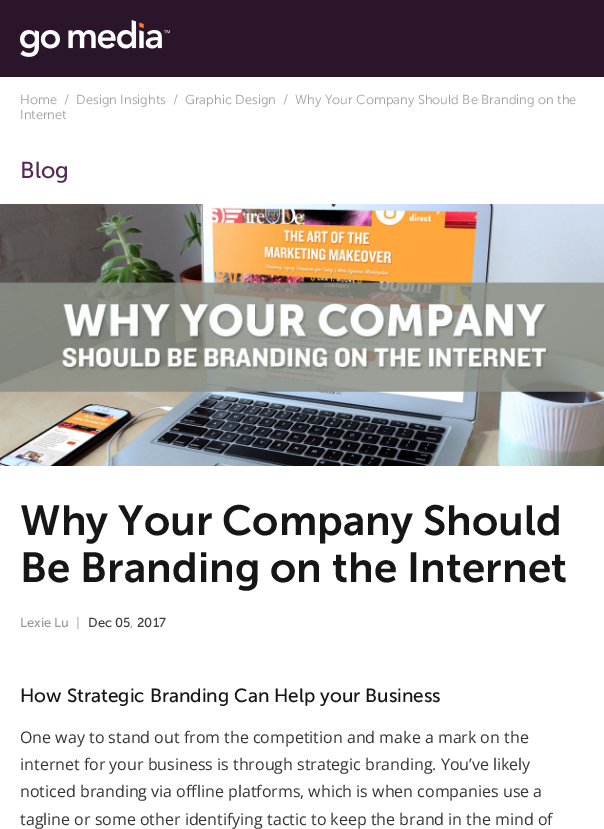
%!PS-Adobe-3.0
%%BoundingBox: 0 0 604 829
%%LanguageLevel: 3
%%Pages: 1
%%EndComments
%%BeginProlog
/drawimage { 5 dict begin { /h /w /y /x /name } { exch def } forall
  gsave x y translate w h scale
  w h 8 [w 0 0 h 0 0] name (r) file false 3 colorimage grestore end } def
%%EndProlog
%%BeginSetup
<< /PageSize [604 829] >> setpagedevice
%%EndSetup
%%Page: 1 1
0 829 translate 1 -1 scale
4 setmiterlimit
1 setgray
0 0 604 829 rectfill
0.165 0.082 0.165 setrgbcolor
0 0 604 77 rectfill
(images/1.raw) 20 20 150 37 drawimage
(images/2.raw) 0 204 604 262 drawimage
/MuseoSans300-Light [13 0 0 -13 0 0] selectfont
0.631 setgray
20 104 moveto (Home) show
64 104 moveto (/) show
76 104 moveto (Design Insights) show
173 104 moveto (/) show
185 104 moveto (Graphic Design) show
283 104 moveto (/  Why Your Company Should Be Branding on the) show
20 119 moveto (Internet) show
/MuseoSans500-Regular [23 0 0 -23 0 0] selectfont
0.333 0.169 0.337 setrgbcolor
20 178 moveto (Blog) show
/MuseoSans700-SemiBold [42 0 0 -42 0 0] selectfont
0.086 setgray
20 535 moveto (Why Your Company Should) show
20 582 moveto (Be Branding on the Internet) show
/MuseoSans500-Regular [13 0 0 -13 0 0] selectfont
0.6 setgray
20 627 moveto (Lexie Lu) show
0.745 0.729 0.745 setrgbcolor
76 627 moveto (|) show
0.239 0.239 0.271 setrgbcolor
88 627 moveto (Dec 05) show
0.6 setgray
130 627 moveto (,) show
0.239 0.239 0.271 setrgbcolor
137 627 moveto (2017) show
/MuseoSans500-Regular [19 0 0 -19 0 0] selectfont
0.086 setgray
20 702 moveto (How Strategic Branding Can Help your Business) show
/OpenSans-Regular [16 0 0 -16 0 0] selectfont
0.2 setgray
20 743 moveto (One way to stand out from the competition and make a mark on the) show
20 770 moveto (internet for your business is through strategic branding. You’ve likely) show
20 797 moveto (noticed branding via offline platforms, which is when companies use a) show
20 825 moveto (tagline or some other identifying tactic to keep the brand in the mind of) show
showpage
%%EOF
